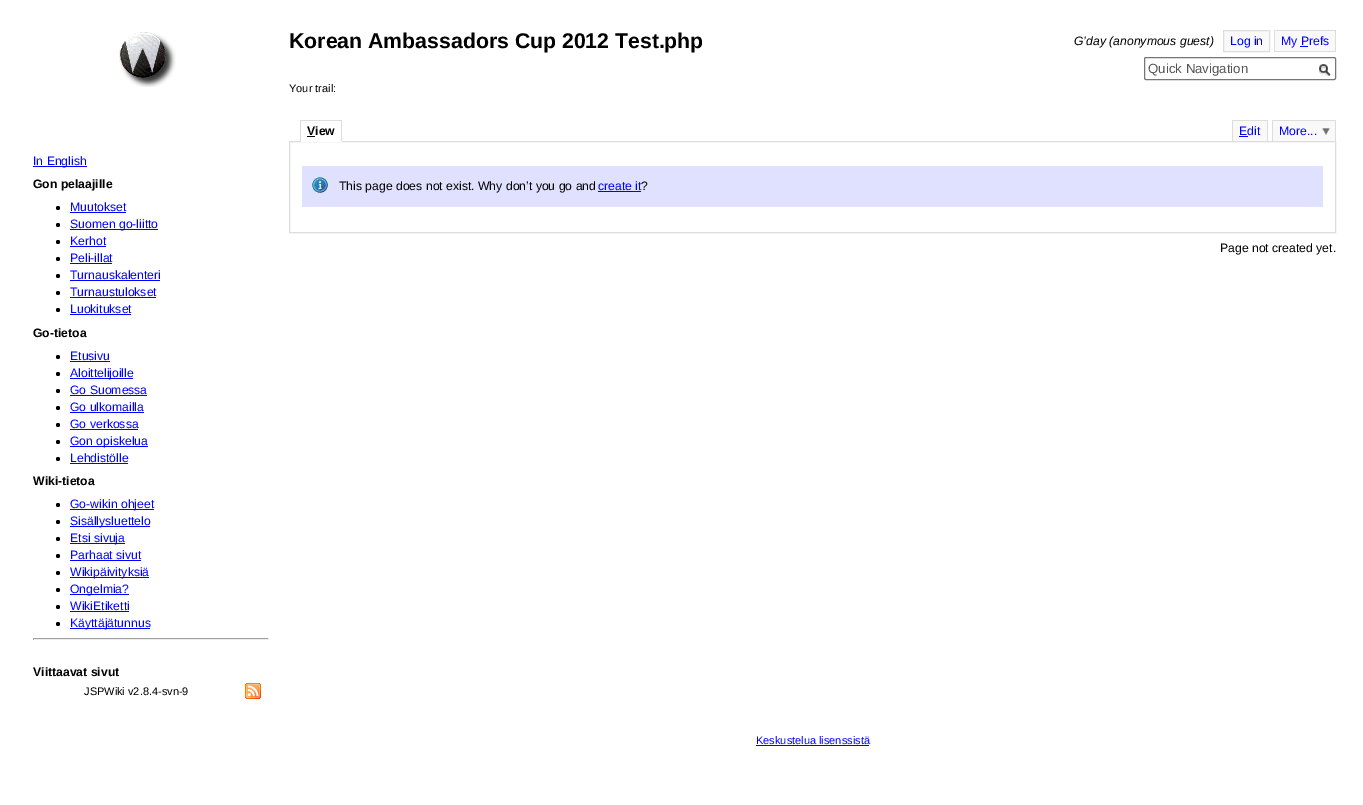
%!PS-Adobe-3.0
%%BoundingBox: 0 0 1363 805
%%LanguageLevel: 3
%%Pages: 1
%%EndComments
%%BeginProlog
/rrect { 5 dict begin { /r /h /w /y /x } { exch def } forall
  x r add y moveto x w add y 2 copy h add r arct x w add y h add x 1 index r arct
  x y h add x y r arct x y 2 copy exch w add exch r arct closepath end } def
/drawimage { 5 dict begin { /h /w /y /x /name } { exch def } forall
  gsave x y translate w h scale
  w h 8 [w 0 0 h 0 0] name (r) file false 3 colorimage grestore end } def
%%EndProlog
%%BeginSetup
<< /PageSize [1363 805] >> setpagedevice
%%EndSetup
%%Page: 1 1
0 805 translate 1 -1 scale
4 setmiterlimit
1 setgray
0 0 1363 805 rectfill
(images/1.raw) 119 32 57 55 drawimage
0.976 setgray
newpath 1223.5 30.5 moveto 1269.5 30.5 lineto 1269.5 51.5 lineto 1223.5 51.5 lineto closepath gsave fill grestore
0.867 setgray
stroke
0.976 setgray
1275 31 25 20 rectfill
0.867 setgray
1274 30 26 1 rectfill
1274 51 26 1 rectfill
1274 30 1 22 rectfill
0.976 setgray
1300 30 8 22 rectfill
0.867 setgray
1300 30 36 1 rectfill
1300 51 8 1 rectfill
0.976 setgray
1308 31 27 20 rectfill
0.867 setgray
1335 30 1 22 rectfill
1308 51 28 1 rectfill
0 0 1 setrgbcolor
1300 46 8 1 rectfill
0.463 setgray
1144.5 57.5 191 22 1.5 rrect stroke
(images/2.raw) 1319 64 12 12 drawimage
0 0 1 setrgbcolor
33 166 54 1 rectfill
0 setgray
newpath 58 208 2 0 360 arc closepath fill
0 0 1 setrgbcolor
70 212 56 1 rectfill
0 setgray
newpath 58 225 2 0 360 arc closepath fill
0 0 1 setrgbcolor
70 229 88 1 rectfill
0 setgray
newpath 58 242 2 0 360 arc closepath fill
0 0 1 setrgbcolor
70 246 36 1 rectfill
0 setgray
newpath 58 259 2 0 360 arc closepath fill
0 0 1 setrgbcolor
70 263 42 1 rectfill
0 setgray
newpath 58 276 2 0 360 arc closepath fill
0 0 1 setrgbcolor
70 280 90 1 rectfill
0 setgray
newpath 58 293 2 0 360 arc closepath fill
0 0 1 setrgbcolor
70 297 86 1 rectfill
0 setgray
newpath 58 310 2 0 360 arc closepath fill
0 0 1 setrgbcolor
70 314 61 1 rectfill
0 setgray
newpath 58 357 2 0 360 arc closepath fill
0 0 1 setrgbcolor
70 361 40 1 rectfill
0 setgray
newpath 58 374 2 0 360 arc closepath fill
0 0 1 setrgbcolor
70 378 63 1 rectfill
0 setgray
newpath 58 391 2 0 360 arc closepath fill
0 0 1 setrgbcolor
70 395 77 1 rectfill
0 setgray
newpath 58 408 2 0 360 arc closepath fill
0 0 1 setrgbcolor
70 412 74 1 rectfill
0 setgray
newpath 58 425 2 0 360 arc closepath fill
0 0 1 setrgbcolor
70 429 68 1 rectfill
0 setgray
newpath 58 442 2 0 360 arc closepath fill
0 0 1 setrgbcolor
70 446 78 1 rectfill
0 setgray
newpath 58 459 2 0 360 arc closepath fill
0 0 1 setrgbcolor
70 463 58 1 rectfill
0 setgray
newpath 58 505 2 0 360 arc closepath fill
0 0 1 setrgbcolor
70 509 84 1 rectfill
0 setgray
newpath 58 522 2 0 360 arc closepath fill
0 0 1 setrgbcolor
70 526 80 1 rectfill
0 setgray
newpath 58 539 2 0 360 arc closepath fill
0 0 1 setrgbcolor
70 543 55 1 rectfill
0 setgray
newpath 58 556 2 0 360 arc closepath fill
0 0 1 setrgbcolor
70 560 71 1 rectfill
0 setgray
newpath 58 573 2 0 360 arc closepath fill
0 0 1 setrgbcolor
70 577 79 1 rectfill
0 setgray
newpath 58 590 2 0 360 arc closepath fill
0 0 1 setrgbcolor
70 594 59 1 rectfill
0 setgray
newpath 58 607 2 0 360 arc closepath fill
0 0 1 setrgbcolor
70 611 59 1 rectfill
0 setgray
newpath 58 624 2 0 360 arc closepath fill
0 0 1 setrgbcolor
70 628 80 1 rectfill
0.624 setgray
33 638 236 1 rectfill
0.933 setgray
268 638 1 2 rectfill
33 639 236 1 rectfill
0.624 setgray
33 638 1 2 rectfill
(images/3.raw) 245 683 16 16 drawimage
0.867 setgray
300 120 42 1 rectfill
289.5 141.5 1046 91 rectstroke
341 120 1 22 rectfill
1 setgray
300 141 42 1 rectfill
0.867 setgray
300 120 1 22 rectfill
0 setgray
307 136 8 1 rectfill
0.976 setgray
1233 121 34 20 rectfill
0.867 setgray
1232 120 36 1 rectfill
1267 120 1 21 rectfill
1232 120 1 21 rectfill
0 0 1 setrgbcolor
1239 136 9 1 rectfill
0.976 setgray
1273 121 62 20 rectfill
(images/4.raw) 1322 128 8 7 drawimage
0.867 setgray
1272 120 64 1 rectfill
1335 120 1 21 rectfill
1272 120 1 21 rectfill
0.878 0.878 1 setrgbcolor
302 166 1021 41 rectfill
(images/5.raw) 312 177 16 16 drawimage
0 0 1 setrgbcolor
598 191 43 1 rectfill
756 745 113 1 rectfill
/LiberationSans-Bold [21.25 0 0 -21.25 0 0] selectfont
0 setgray
289 48 moveto (Korean Ambassadors Cup 2012 Test.php) show
/LiberationSans-Italic [12.2 0 0 -12.2 0 0] selectfont
1074 45 moveto (G’day \(anonymous guest\)) show
/LiberationSans-Regular [12.2 0 0 -12.2 0 0] selectfont
0 0 1 setrgbcolor
1230 45 moveto (Log in) show
1281 45 moveto (My Prefs) show
/LiberationSans-Regular [13.25 0 0 -13.25 0 0] selectfont
0.333 setgray
1148 73 moveto (Quick Navigation) show
/LiberationSans-Regular [11 0 0 -11 0 0] selectfont
0 setgray
289 92 moveto (Your trail:) show
/LiberationSans-Regular [12.2 0 0 -12.2 0 0] selectfont
0 0 1 setrgbcolor
33 165 moveto (In English) show
/LiberationSans-Bold [12.2 0 0 -12.2 0 0] selectfont
0 setgray
33 188 moveto (Gon pelaajille) show
/LiberationSans-Regular [12.2 0 0 -12.2 0 0] selectfont
0 0 1 setrgbcolor
70 211 moveto (Muutokset) show
70 228 moveto (Suomen go-liitto) show
70 245 moveto (Kerhot) show
70 262 moveto (Peli-illat) show
70 279 moveto (Turnauskalenteri) show
70 296 moveto (Turnaustulokset) show
70 313 moveto (Luokitukset) show
/LiberationSans-Bold [12.2 0 0 -12.2 0 0] selectfont
0 setgray
33 337 moveto (Go-tietoa) show
/LiberationSans-Regular [12.2 0 0 -12.2 0 0] selectfont
0 0 1 setrgbcolor
70 360 moveto (Etusivu) show
70 377 moveto (Aloittelijoille) show
70 394 moveto (Go Suomessa) show
70 411 moveto (Go ulkomailla) show
70 428 moveto (Go verkossa) show
70 445 moveto (Gon opiskelua) show
70 462 moveto (Lehdistölle) show
/LiberationSans-Bold [12.2 0 0 -12.2 0 0] selectfont
0 setgray
33 485 moveto (Wiki-tietoa) show
/LiberationSans-Regular [12.2 0 0 -12.2 0 0] selectfont
0 0 1 setrgbcolor
70 508 moveto (Go-wikin ohjeet) show
70 525 moveto (Sisällysluettelo) show
70 542 moveto (Etsi sivuja) show
70 559 moveto (Parhaat sivut) show
70 576 moveto (Wikipäivityksiä) show
70 593 moveto (Ongelmia?) show
70 610 moveto (WikiEtiketti) show
70 627 moveto (Käyttäjätunnus) show
/LiberationSans-Bold [12.2 0 0 -12.2 0 0] selectfont
0 setgray
33 676 moveto (Viittaavat sivut) show
/LiberationSans-Regular [11 0 0 -11 0 0] selectfont
84 695 moveto (JSPWiki v2.8.4-svn-9) show
/LiberationSans-Bold [12.2 0 0 -12.2 0 0] selectfont
307 135 moveto (View) show
/LiberationSans-Regular [12.2 0 0 -12.2 0 0] selectfont
0 0 1 setrgbcolor
1239 135 moveto (Edit) show
1279 135 moveto (More...) show
0 setgray
339 190 moveto (This page does not exist. Why don’t you go and) show
0 0 1 setrgbcolor
598 190 moveto (create it) show
0 setgray
641 190 moveto (?) show
1220 252 moveto (Page not created yet.) show
/LiberationSans-Regular [11 0 0 -11 0 0] selectfont
0 0 1 setrgbcolor
756 744 moveto (Keskustelua lisenssistä) show
showpage
%%EOF
